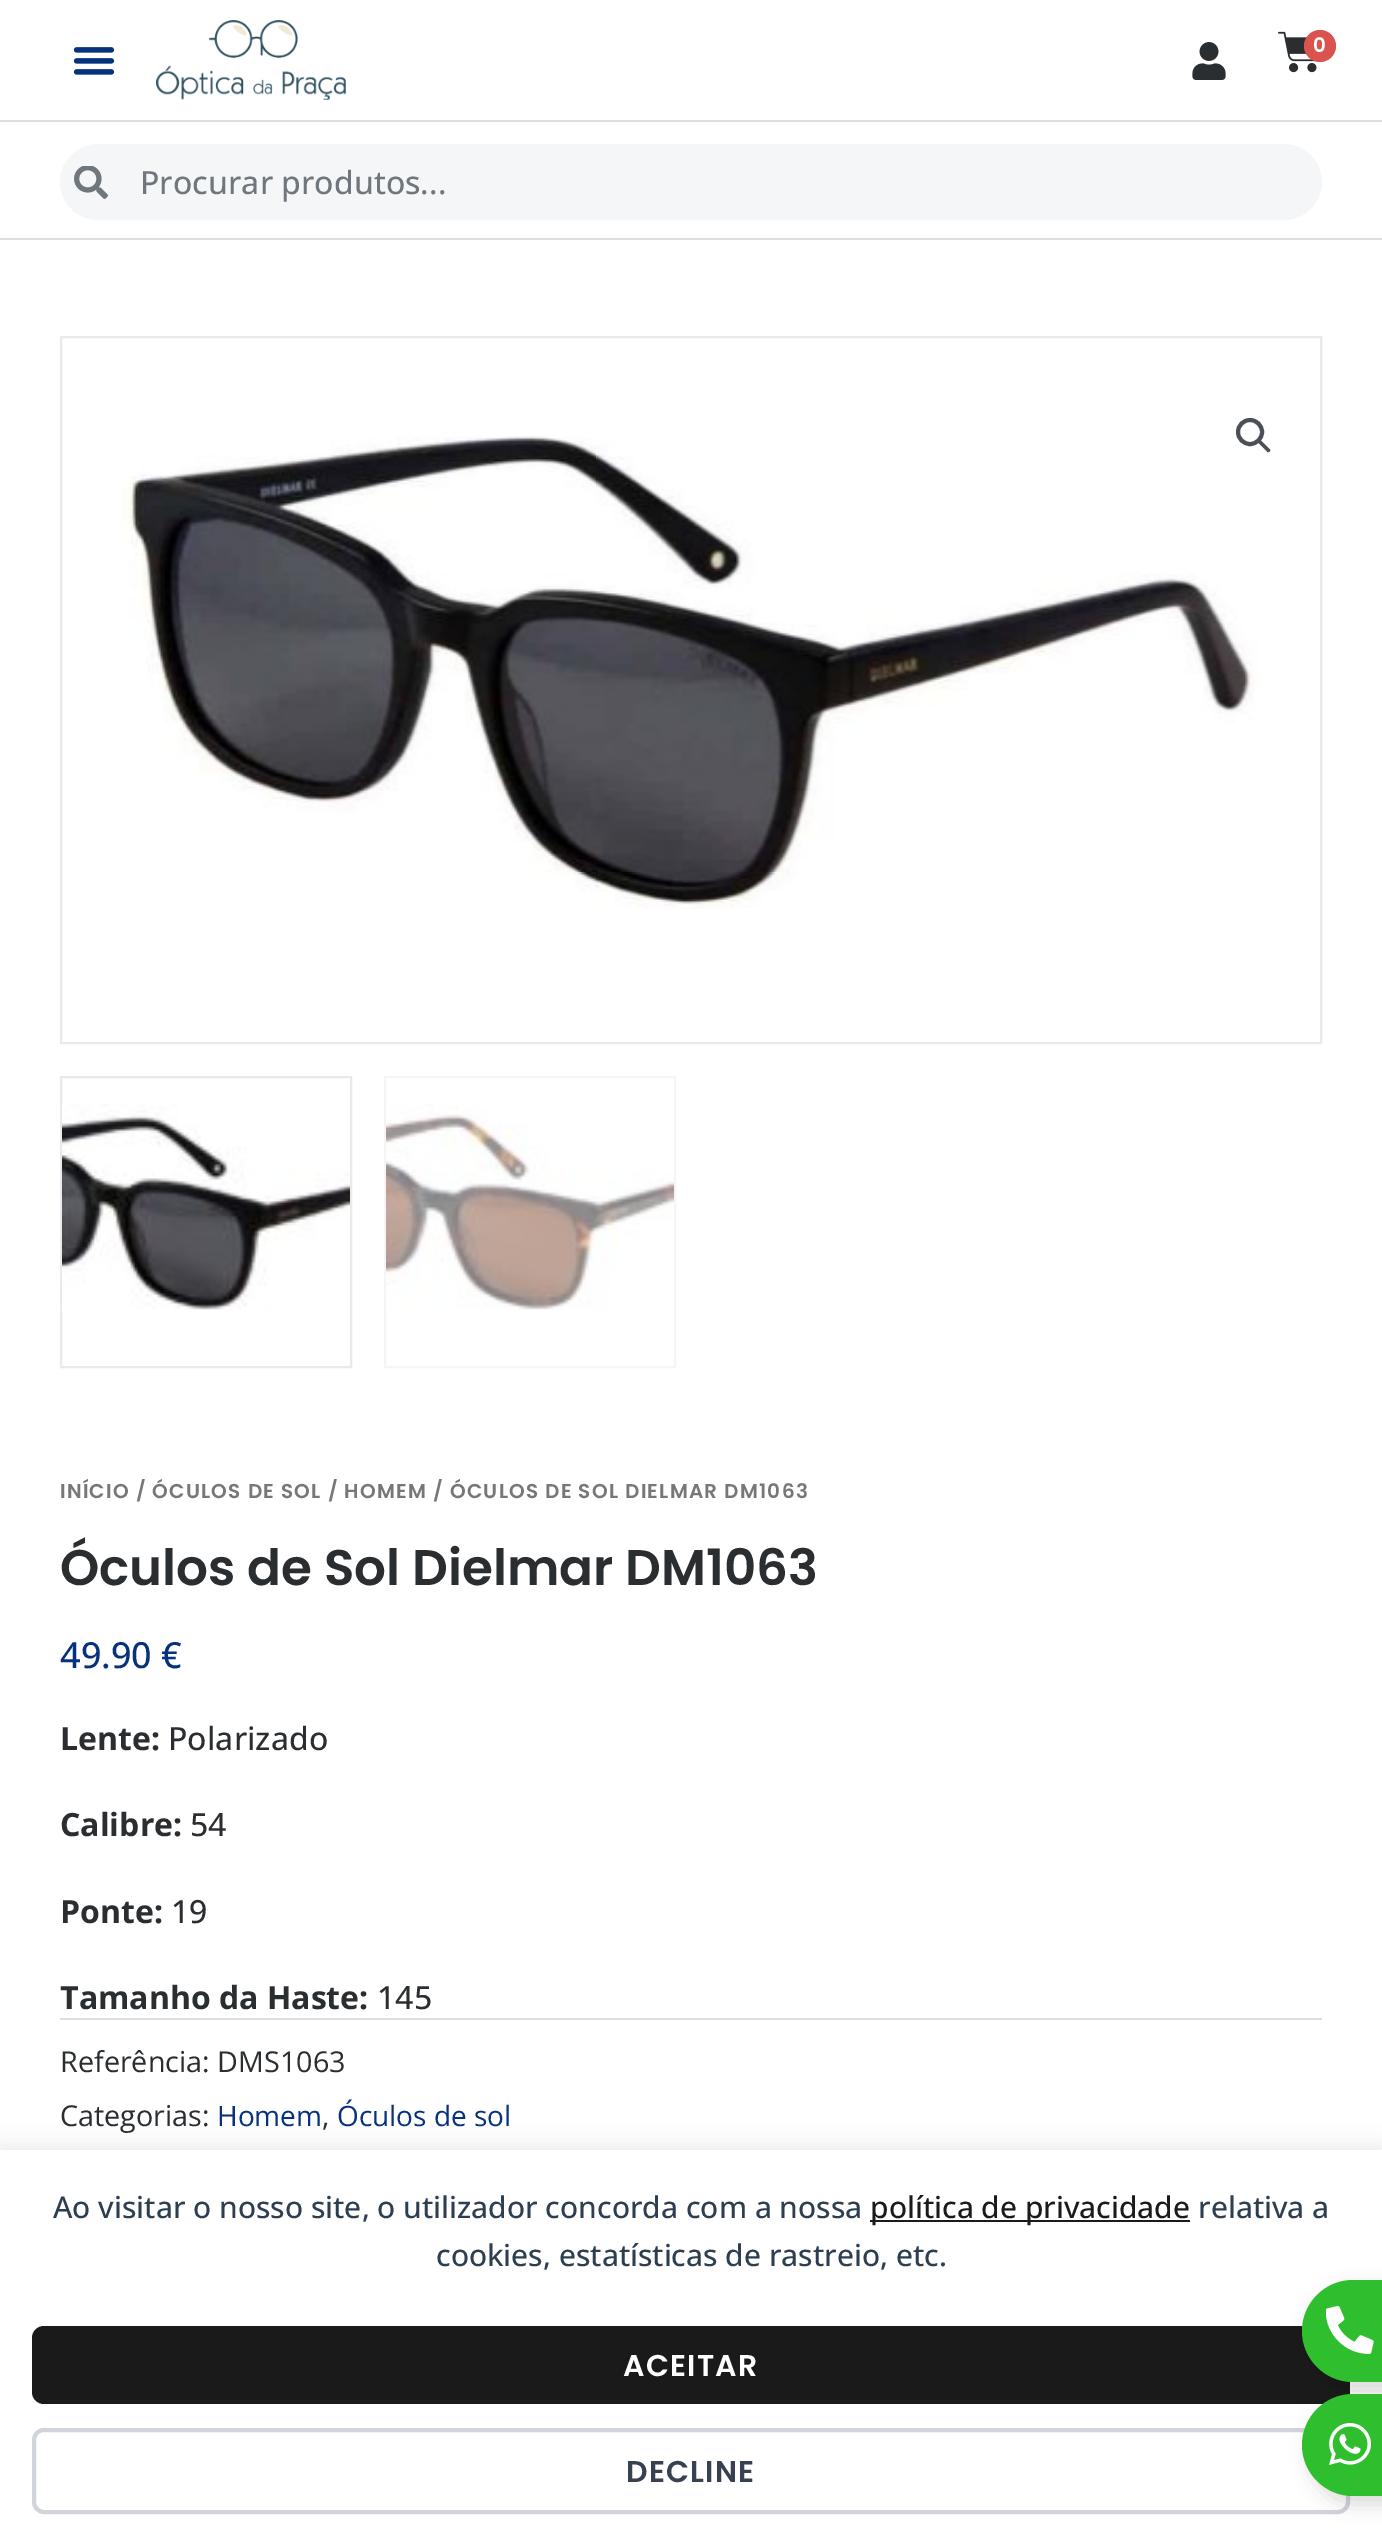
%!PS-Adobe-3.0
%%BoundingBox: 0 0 1382 2546
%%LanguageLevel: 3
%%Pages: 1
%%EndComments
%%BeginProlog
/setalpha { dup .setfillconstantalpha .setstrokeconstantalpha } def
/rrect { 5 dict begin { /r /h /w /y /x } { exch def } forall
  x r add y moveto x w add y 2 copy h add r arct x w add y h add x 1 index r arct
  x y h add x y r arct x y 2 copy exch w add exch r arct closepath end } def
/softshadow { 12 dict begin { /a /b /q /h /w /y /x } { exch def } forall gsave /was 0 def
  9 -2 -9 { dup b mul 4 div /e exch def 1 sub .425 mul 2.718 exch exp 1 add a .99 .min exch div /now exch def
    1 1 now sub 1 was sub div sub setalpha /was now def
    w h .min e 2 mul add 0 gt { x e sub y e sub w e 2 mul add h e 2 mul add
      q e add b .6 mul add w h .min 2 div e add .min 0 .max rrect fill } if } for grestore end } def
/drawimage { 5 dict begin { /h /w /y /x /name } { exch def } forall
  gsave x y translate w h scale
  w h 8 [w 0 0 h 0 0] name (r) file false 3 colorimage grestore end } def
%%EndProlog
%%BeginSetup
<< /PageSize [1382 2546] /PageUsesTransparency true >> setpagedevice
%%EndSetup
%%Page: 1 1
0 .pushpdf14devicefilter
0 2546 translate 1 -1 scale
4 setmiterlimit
1 setgray
0 0 1382 2546 rectfill
0.871 setgray
0 120 1382 2 rectfill
(images/1.raw) 73 47 42 28 drawimage
(images/2.raw) 156 20 190 80 drawimage
(images/3.raw) 1192 42 34 38 drawimage
(images/4.raw) 1278 31 39 42 drawimage
0.851 0.325 0.31 setrgbcolor
newpath 1320 46 16 0 360 arc closepath fill
0.871 setgray
0 238 1382 2 rectfill
0.961 0.965 0.969 setrgbcolor
61 145 1260 74 37 rrect gsave fill grestore
2 setlinewidth
stroke
(images/5.raw) 74 166 34 33 drawimage
0.918 setgray
61 337 1260 706 rectstroke
(images/6.raw) 121 436 1140 473 drawimage
0.294 0.31 0.345 setrgbcolor
4 setlinewidth
newpath 1250 432 12 0 360 arc closepath stroke
newpath 1258.5 440.5 moveto 1259 439.5 1260.5 439.5 1261 440.5 curveto 1269.5 449 lineto 1270.5 449.5 1270.5 451 1269.5 451.5 curveto 1269 452.5 1267.5 452.5 1267 451.5 curveto 1258.5 443 lineto 1257.5 442.5 1257.5 441 1258.5 440.5 curveto closepath fill
0.918 setgray
2 setlinewidth
61 1077 290 290 rectstroke
(images/7.raw) 62 1104 288 206 drawimage
0.961 setgray
385 1077 290 290 rectstroke
(images/8.raw) 386 1104 288 206 drawimage
0.871 setgray
60 2018 1262 2 rectfill
0 setgray
0 2146 1382 396 0 10 0.08 softshadow
1 setgray
0 2150 1382 396 rectfill
0.102 setgray
870 2220 320 2 rectfill
32 2326 1318 78 12 rrect fill
0.82 0.835 0.859 setrgbcolor
4 setlinewidth
34 2430 1314 82 10 rrect stroke
0 setgray
1310 2288 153 102 51 10 0.15 softshadow
0.184 0.749 0.18 setrgbcolor
newpath 1353 2280 moveto 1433 2280 lineto 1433 2382 lineto 1353 2382 lineto 1325 2382 1302 2359 1302 2331 curveto 1302 2303 1325 2280 1353 2280 curveto closepath fill
(images/9.raw) 1326 2306 48 48 drawimage
0 setgray
1310 2402 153 102 51 10 0.15 softshadow
0.184 0.749 0.18 setrgbcolor
newpath 1353 2394 moveto 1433 2394 lineto 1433 2496 lineto 1353 2496 lineto 1325 2496 1302 2473 1302 2445 curveto 1302 2417 1325 2394 1353 2394 curveto closepath fill
(images/10.raw) 1329 2423 42 42 drawimage
/Poppins-SemiBold [20 0 0 -20 0 0] selectfont
1 setgray
1313 52 moveto 1.2 0 (0) ashow
/OpenSans-Medium [32 0 0 -32 0 0] selectfont
0.435 0.463 0.494 setrgbcolor
140 194 moveto (Procurar produtos...) show
/Poppins-SemiBold [20 0 0 -20 0 0] selectfont
0.467 setgray
60 1498 moveto 1.2 0 (INÍCIO / ÓCULOS DE SOL / HOMEM / ÓCULOS DE SOL DIELMAR DM1063) ashow
/Poppins-SemiBold [50 0 0 -50 0 0] selectfont
0.169 0.18 0.192 setrgbcolor
60 1585 moveto (Óculos de Sol Dielmar DM1063) show
/OpenSans-Medium [36 0 0 -36 0 0] selectfont
0.024 0.196 0.49 setrgbcolor
60 1668 moveto (49.90 €) show
/OpenSans-Bold [32 0 0 -32 0 0] selectfont
0.169 0.18 0.192 setrgbcolor
60 1750 moveto (Lente:) show
/OpenSans-Medium [32 0 0 -32 0 0] selectfont
168 1750 moveto (Polarizado) show
/OpenSans-Bold [32 0 0 -32 0 0] selectfont
60 1836 moveto (Calibre:) show
/OpenSans-Medium [32 0 0 -32 0 0] selectfont
190 1836 moveto (54) show
/OpenSans-Bold [32 0 0 -32 0 0] selectfont
60 1923 moveto (Ponte:) show
/OpenSans-Medium [32 0 0 -32 0 0] selectfont
171 1923 moveto (19) show
/OpenSans-Bold [32 0 0 -32 0 0] selectfont
60 2009 moveto (Tamanho da Haste:) show
/OpenSans-Medium [32 0 0 -32 0 0] selectfont
377 2009 moveto (145) show
/OpenSans-Regular [28.75 0 0 -28.75 0 0] selectfont
60 2072 moveto (Referência: DMS1063) show
60 2126 moveto (Categorias:) show
/OpenSans-Regular [28 0 0 -28 0 0] selectfont
0.024 0.196 0.49 setrgbcolor
217 2126 moveto (Homem) show
/OpenSans-Regular [28.75 0 0 -28.75 0 0] selectfont
0.169 0.18 0.192 setrgbcolor
322 2126 moveto (,) show
/OpenSans-Regular [28 0 0 -28 0 0] selectfont
0.024 0.196 0.49 setrgbcolor
337 2126 moveto (Óculos de sol) show
/OpenSans-Medium [30 0 0 -30 0 0] selectfont
0.173 0.243 0.314 setrgbcolor
53 2218 moveto (Ao visitar o nosso site, o utilizador concorda com a nossa) show
0.102 setgray
870 2218 moveto (política de privacidade) show
0.173 0.243 0.314 setrgbcolor
1198 2218 moveto (relativa a) show
436 2266 moveto (cookies, estatísticas de rastreio, etc.) show
/Poppins-SemiBold [30 0 0 -30 0 0] selectfont
1 setgray
623 2376 moveto 1.2 0 (ACEITAR) ashow
0.216 0.255 0.318 setrgbcolor
626 2482 moveto 1.2 0 (DECLINE) ashow
.poppdf14devicefilter showpage
%%EOF
